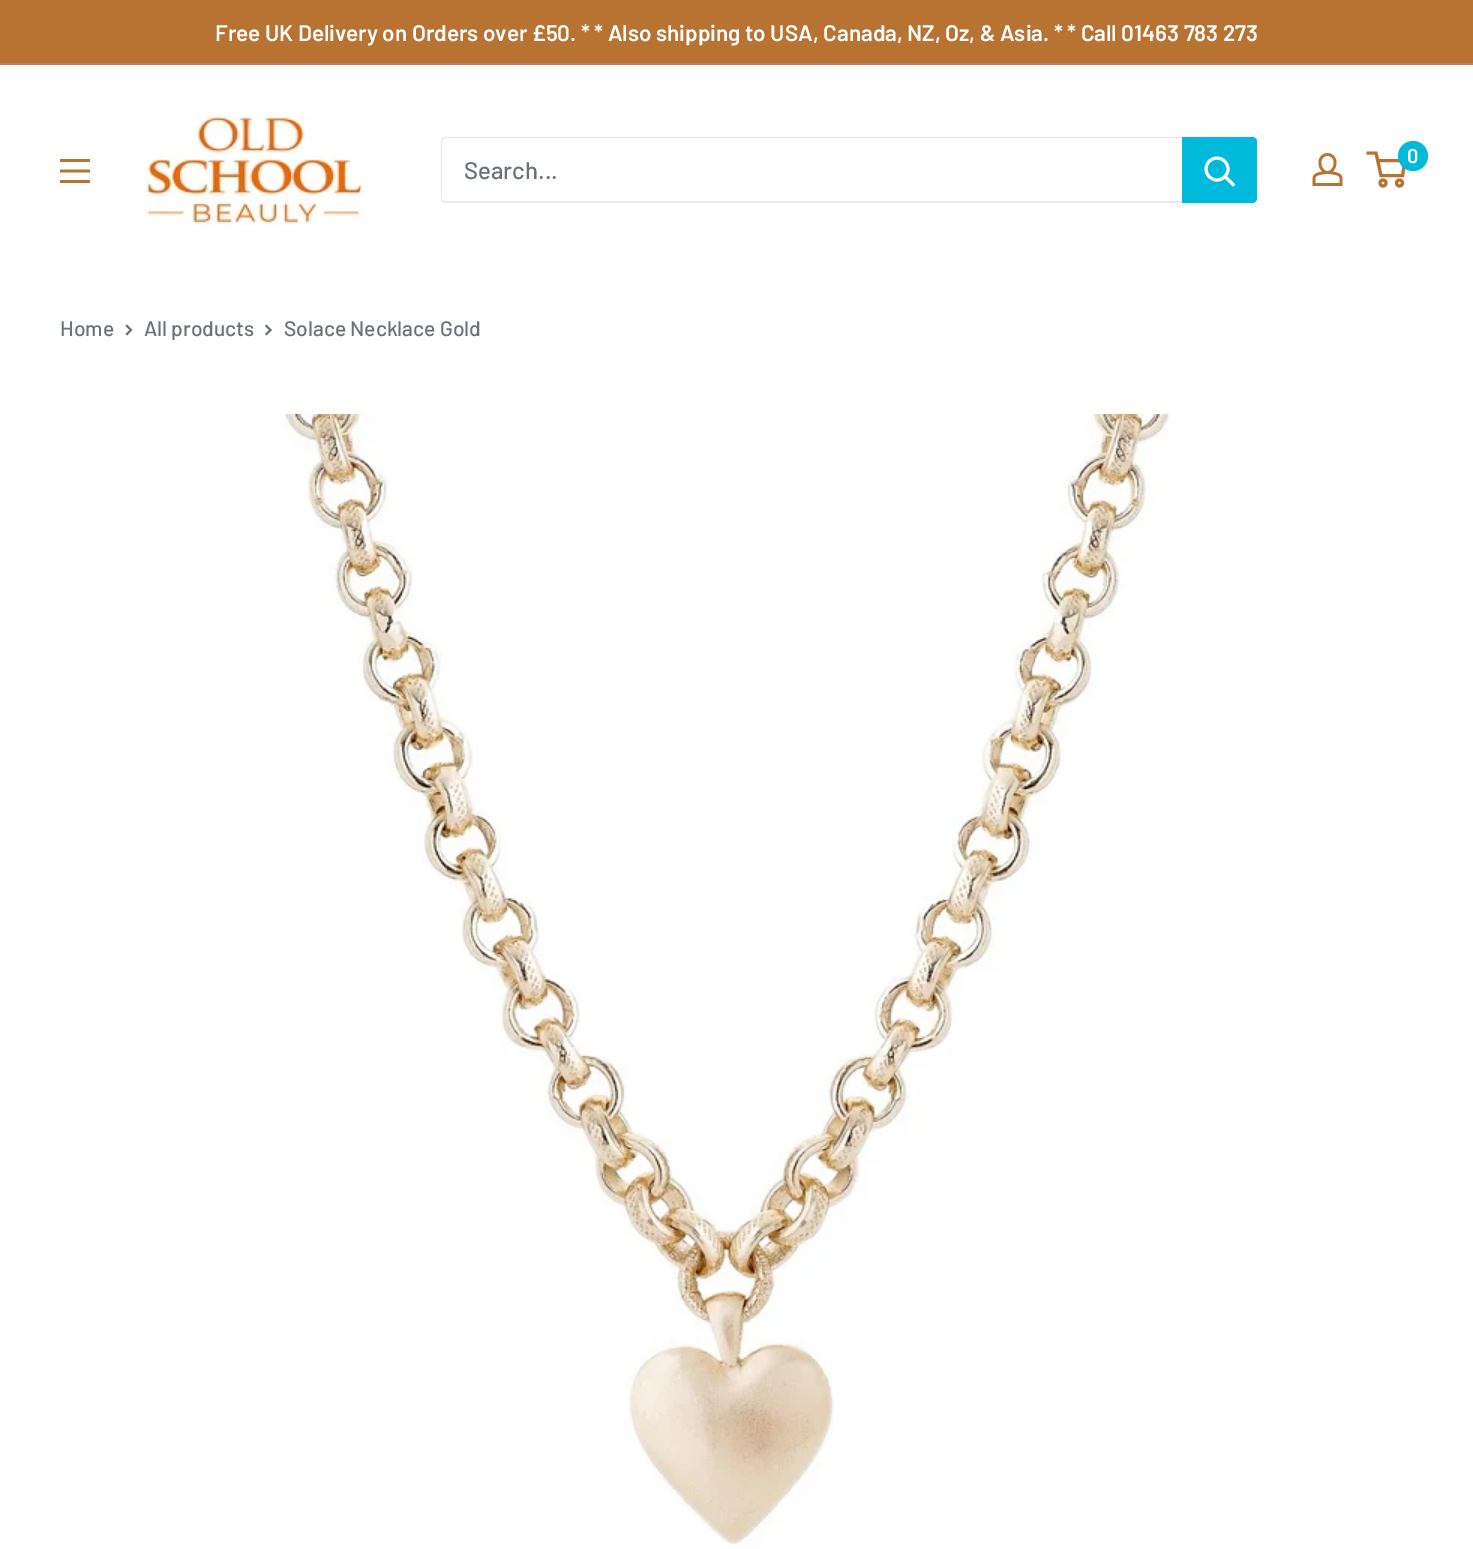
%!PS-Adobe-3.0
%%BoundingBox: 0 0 1473 1549
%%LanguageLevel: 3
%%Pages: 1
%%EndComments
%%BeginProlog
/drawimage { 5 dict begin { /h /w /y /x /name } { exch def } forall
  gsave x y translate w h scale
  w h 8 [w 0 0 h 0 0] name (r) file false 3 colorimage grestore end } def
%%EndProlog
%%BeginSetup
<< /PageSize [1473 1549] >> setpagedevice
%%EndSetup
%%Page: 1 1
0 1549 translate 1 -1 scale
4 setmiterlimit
1 setgray
0 0 1473 1549 rectfill
0.722 0.451 0.2 setrgbcolor
0 0 1473 63 rectfill
0.698 0.522 0.42 setrgbcolor
0 63 1473 2 rectfill
(images/1.raw) 144 107 220 120 drawimage
(images/2.raw) 1312 153 31 33 drawimage
0.722 0.451 0.2 setrgbcolor
3 setlinewidth
newpath 1383 183 3 0 360 arc closepath stroke
newpath 1399.5 183 3 0 360 arc closepath stroke
newpath 1377.5 160.5 moveto 1405 160.5 lineto 1402.5 175.5 lineto 1381 175.5 lineto 1376 153 lineto 1366.5 153 lineto stroke
0 0.729 0.859 setrgbcolor
newpath 1413 156 15 0 360 arc closepath fill
(images/3.raw) 60 159 30 24 drawimage
0.89 0.906 0.98 setrgbcolor
newpath 441 200 moveto 442 202 444 203 446 203 curveto 1252 203 lineto 1255 203 1257 201 1257 198 curveto 1257 142 lineto 1257 141 1257 140 1256 139 curveto 1256 187 lineto 1256 190 1258 201 1251 201 curveto 444 201 lineto closepath fill
newpath 447 138 moveto 1255 138 lineto 1254 137 1253 137 1252 137 curveto 446 137 lineto 443 137 441 139 441 142 curveto 441 198 lineto 441 200 442 201 443 202 curveto 442 200 lineto 442 141 lineto 443 139 445 138 447 138 curveto closepath fill
0 0.729 0.859 setrgbcolor
newpath 1182 137 moveto 1252 137 lineto 1255 137 1257 139 1257 142 curveto 1257 198 lineto 1257 201 1255 203 1252 203 curveto 1182 203 lineto closepath fill
1 setgray
2 setlinecap
newpath 1233 184.5 moveto 1225.5 177 lineto stroke
0 setlinecap
newpath 1217 169 11 0 360 arc closepath stroke
0.404 0.447 0.475 setrgbcolor
2 setlinewidth
2 setlinecap
newpath 127 326 moveto 131 330 lineto 127 334 lineto stroke
newpath 266.5 326 moveto 270.5 330 lineto 266.5 334 lineto stroke
(images/4.raw) 281 414 888 1134 drawimage
/Barlow-SemiBold [22.5 0 0 -22.5 0 0] selectfont
1 setgray
215 41 moveto (Free UK Delivery on Orders over £50. * * Also shipping to USA, Canada, NZ, Oz, & Asia. * * Call 01463 783 273) show
/Barlow-SemiBold [20 0 0 -20 0 0] selectfont
1407 163 moveto (0) show
/Barlow-Medium [24 0 0 -24 0 0] selectfont
0.404 0.447 0.475 setrgbcolor
464 179 moveto (Search...) show
/Barlow-Medium [21 0 0 -21 0 0] selectfont
60 336 moveto (Home) show
144 336 moveto (All products) show
284 336 moveto (Solace Necklace Gold) show
showpage
%%EOF
